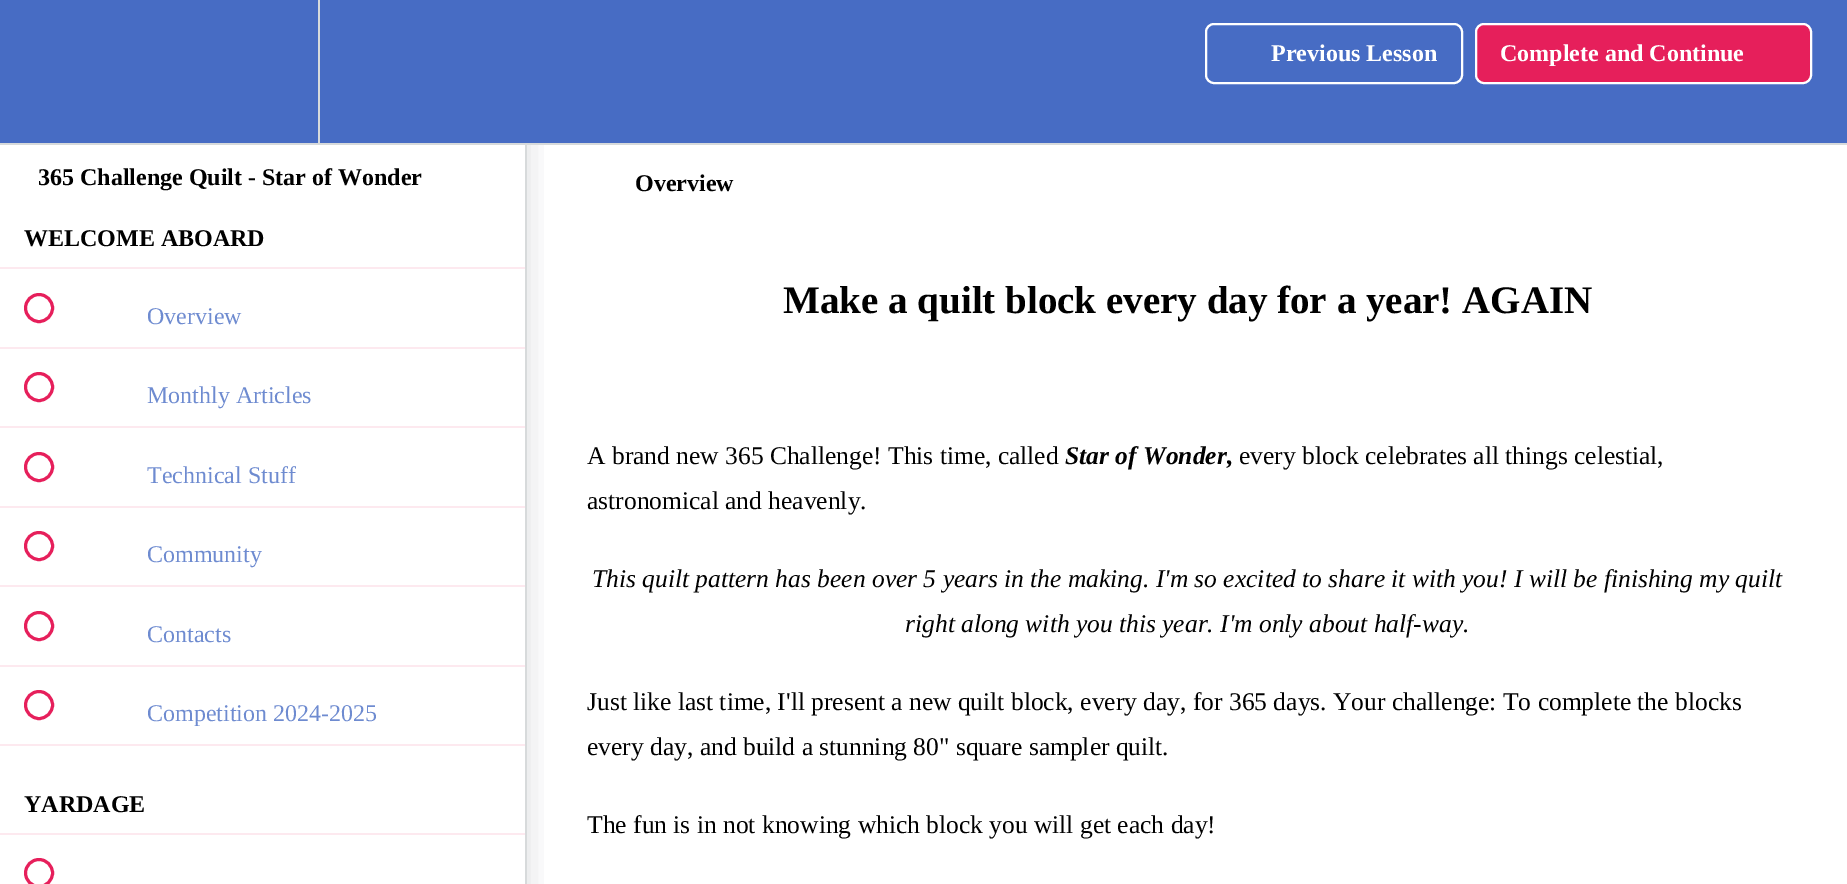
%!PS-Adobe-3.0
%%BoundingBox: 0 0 1847 884
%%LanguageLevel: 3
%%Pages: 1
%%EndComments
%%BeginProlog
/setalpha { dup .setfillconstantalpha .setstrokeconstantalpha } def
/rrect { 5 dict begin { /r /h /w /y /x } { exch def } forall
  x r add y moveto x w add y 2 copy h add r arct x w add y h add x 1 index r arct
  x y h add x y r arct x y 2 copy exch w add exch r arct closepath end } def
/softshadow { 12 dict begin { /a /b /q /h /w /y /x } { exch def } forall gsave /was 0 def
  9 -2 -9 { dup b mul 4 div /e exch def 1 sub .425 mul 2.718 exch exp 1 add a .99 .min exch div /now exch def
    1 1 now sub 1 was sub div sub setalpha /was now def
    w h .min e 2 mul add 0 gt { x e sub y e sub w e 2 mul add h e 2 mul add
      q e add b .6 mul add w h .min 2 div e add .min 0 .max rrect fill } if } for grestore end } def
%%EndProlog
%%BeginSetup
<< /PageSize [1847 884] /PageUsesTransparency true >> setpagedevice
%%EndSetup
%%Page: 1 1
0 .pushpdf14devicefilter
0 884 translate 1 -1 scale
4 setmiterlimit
1 setgray
0 0 1847 884 rectfill
gsave
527 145 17 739 rectclip
0.125 0.153 0.176 setrgbcolor
0 135 527 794 0 15 0.15 softshadow
grestore
0.278 0.424 0.769 setrgbcolor
0 0 1847 143 rectfill
0.843 0.855 0.859 setrgbcolor
0 143 1847 2 rectfill
318 0 2 143 rectfill
1 setgray
2 setlinewidth
1206 24 256 59 8 rrect stroke
0.902 0.122 0.357 setrgbcolor
1476 24 335 59 8 rrect gsave fill grestore
1 setgray
stroke
0.843 0.855 0.859 setrgbcolor
525 145 2 739 rectfill
0.992 0.914 0.937 setrgbcolor
0 267 525 2 rectfill
0 347 525 2 rectfill
0.902 0.122 0.357 setrgbcolor
3 setlinewidth
newpath 39 308 13.5 0 360 arc closepath stroke
0.992 0.914 0.937 setrgbcolor
0 426 525 2 rectfill
0.902 0.122 0.357 setrgbcolor
newpath 39 387 13.5 0 360 arc closepath stroke
0.992 0.914 0.937 setrgbcolor
0 506 525 2 rectfill
0.902 0.122 0.357 setrgbcolor
newpath 39 467 13.5 0 360 arc closepath stroke
0.992 0.914 0.937 setrgbcolor
0 585 525 2 rectfill
0.902 0.122 0.357 setrgbcolor
newpath 39 546 13.5 0 360 arc closepath stroke
0.992 0.914 0.937 setrgbcolor
0 665 525 2 rectfill
0.902 0.122 0.357 setrgbcolor
newpath 39 626 13.5 0 360 arc closepath stroke
0.992 0.914 0.937 setrgbcolor
0 744 525 2 rectfill
0.902 0.122 0.357 setrgbcolor
newpath 39 705 13.5 0 360 arc closepath stroke
0.992 0.914 0.937 setrgbcolor
0 833 525 2 rectfill
0.902 0.122 0.357 setrgbcolor
newpath 39 873 13.5 0 360 arc closepath stroke
/LiberationSerif-Bold [24 0 0 -24 0 0] selectfont
1 setgray
1271 61 moveto (Previous Lesson) show
1500 61 moveto (Complete and Continue) show
0 setgray
38 185 moveto (365 Challenge Quilt - Star of Wonder) show
24 246 moveto (WELCOME ABOARD) show
/LiberationSerif-Regular [24 0 0 -24 0 0] selectfont
0.431 0.545 0.816 setrgbcolor
147 324 moveto (Overview) show
147 403 moveto (Monthly Articles) show
147 483 moveto (Technical Stuff) show
147 562 moveto (Community) show
147 642 moveto (Contacts) show
147 721 moveto (Competition 2024-2025) show
/LiberationSerif-Bold [24 0 0 -24 0 0] selectfont
0 setgray
24 812 moveto (YARDAGE) show
635 191 moveto (Overview) show
/LiberationSerif-Bold [39 0 0 -39 0 0] selectfont
783 313 moveto (Make a quilt block every day for a year! AGAIN) show
/LiberationSerif-Regular [25.5 0 0 -25.5 0 0] selectfont
587 464 moveto (A brand new 365 Challenge! This time, called) show
/LiberationSerif-BoldItalic [25.5 0 0 -25.5 0 0] selectfont
1065 464 moveto (Star of Wonder,) show
/LiberationSerif-Regular [25.5 0 0 -25.5 0 0] selectfont
1239 464 moveto (every block celebrates all things celestial,) show
587 509 moveto (astronomical and heavenly.) show
/LiberationSerif-Italic [25.5 0 0 -25.5 0 0] selectfont
592 587 moveto (This quilt pattern has been over 5 years in the making. I'm so excited to share it with you! I will be finishing my quilt) show
905 632 moveto (right along with you this year. I'm only about half-way.) show
/LiberationSerif-Regular [25.5 0 0 -25.5 0 0] selectfont
587 710 moveto (Just like last time, I'll present a new quilt block, every day, for 365 days. Your challenge: To complete the blocks) show
587 755 moveto (every day, and build a stunning 80" square sampler quilt.) show
587 833 moveto (The fun is in not knowing which block you will get each day!) show
.poppdf14devicefilter showpage
%%EOF
